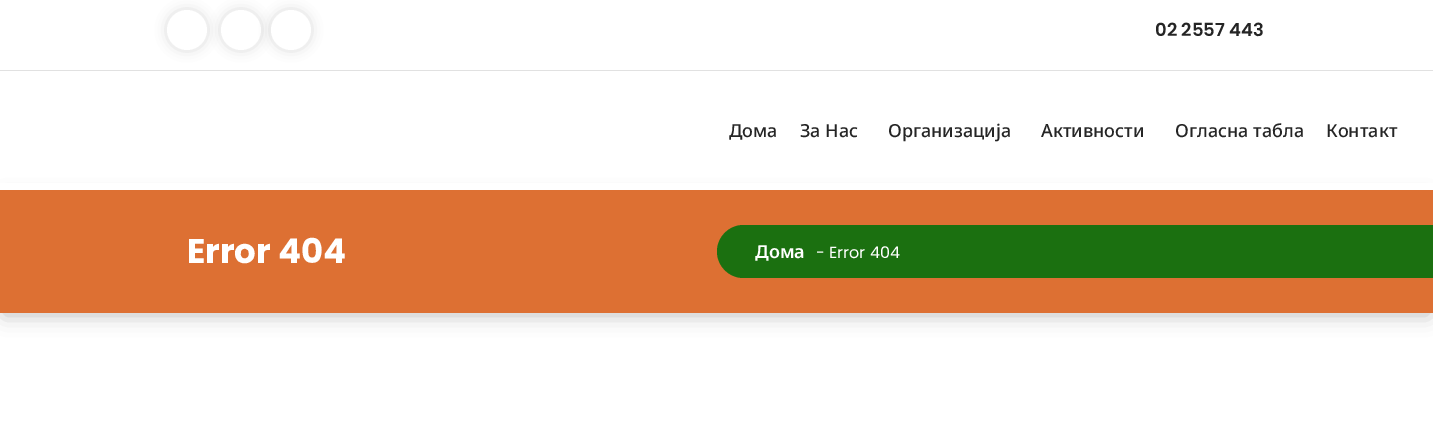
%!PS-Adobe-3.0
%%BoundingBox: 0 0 1433 434
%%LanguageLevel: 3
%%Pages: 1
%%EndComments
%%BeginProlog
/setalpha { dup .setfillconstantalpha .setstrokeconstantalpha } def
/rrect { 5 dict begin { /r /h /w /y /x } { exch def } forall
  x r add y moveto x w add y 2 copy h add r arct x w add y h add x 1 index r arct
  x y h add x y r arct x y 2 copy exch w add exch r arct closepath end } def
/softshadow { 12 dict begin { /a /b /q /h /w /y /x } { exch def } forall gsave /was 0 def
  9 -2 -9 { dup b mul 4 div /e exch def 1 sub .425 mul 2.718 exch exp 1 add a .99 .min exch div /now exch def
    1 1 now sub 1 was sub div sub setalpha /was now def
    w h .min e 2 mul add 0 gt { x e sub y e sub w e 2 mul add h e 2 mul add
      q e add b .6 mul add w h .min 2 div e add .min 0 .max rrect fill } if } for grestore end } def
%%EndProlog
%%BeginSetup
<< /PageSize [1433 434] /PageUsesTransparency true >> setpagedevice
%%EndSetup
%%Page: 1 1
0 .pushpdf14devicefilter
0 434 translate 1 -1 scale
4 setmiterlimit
1 setgray
0 0 1433 434 rectfill
0 setgray
4 200 1425 115 0 10 0.25 softshadow
1 setgray
0 183 1433 7 rectfill
0.882 setgray
0 70 1433 1 rectfill
0 setgray
169 12 36 36 18 6.5 0.2 softshadow
1 setgray
newpath 187 30 20 0 360 arc closepath fill
0 setgray
223 12 36 36 18 6.5 0.2 softshadow
1 setgray
newpath 241 30 20 0 360 arc closepath fill
0 setgray
273 12 36 36 18 6.5 0.2 softshadow
1 setgray
newpath 291 30 20 0 360 arc closepath fill
0.867 0.439 0.2 setrgbcolor
0 190 1433 123 rectfill
0.106 0.439 0.063 setrgbcolor
newpath 743.5 225 moveto 1433 225 lineto 1433 278 lineto 743.5 278 lineto 729 278 717 266 717 251.5 curveto 717 237 729 225 743.5 225 curveto closepath fill
/Poppins-SemiBold [18 0 0 -18 0 0] selectfont
0.145 setgray
1155 36 moveto (02 2557 443) show
/NotoSans-Medium [18 0 0 -18 0 0] selectfont
729 137 moveto (Дома) show
800 137 moveto (За Нас) show
888 137 moveto (Организација) show
1041 137 moveto (Активности) show
1175 137 moveto (Огласна табла) show
1326 137 moveto (Контакт) show
/Poppins-Bold [34 0 0 -34 0 0] selectfont
1 setgray
187 263 moveto (Error 404) show
/NotoSans-SemiBold [18 0 0 -18 0 0] selectfont
755 258 moveto (Дома) show
/Poppins-Regular [16 0 0 -16 0 0] selectfont
816 258 moveto (- Error 404) show
.poppdf14devicefilter showpage
%%EOF
